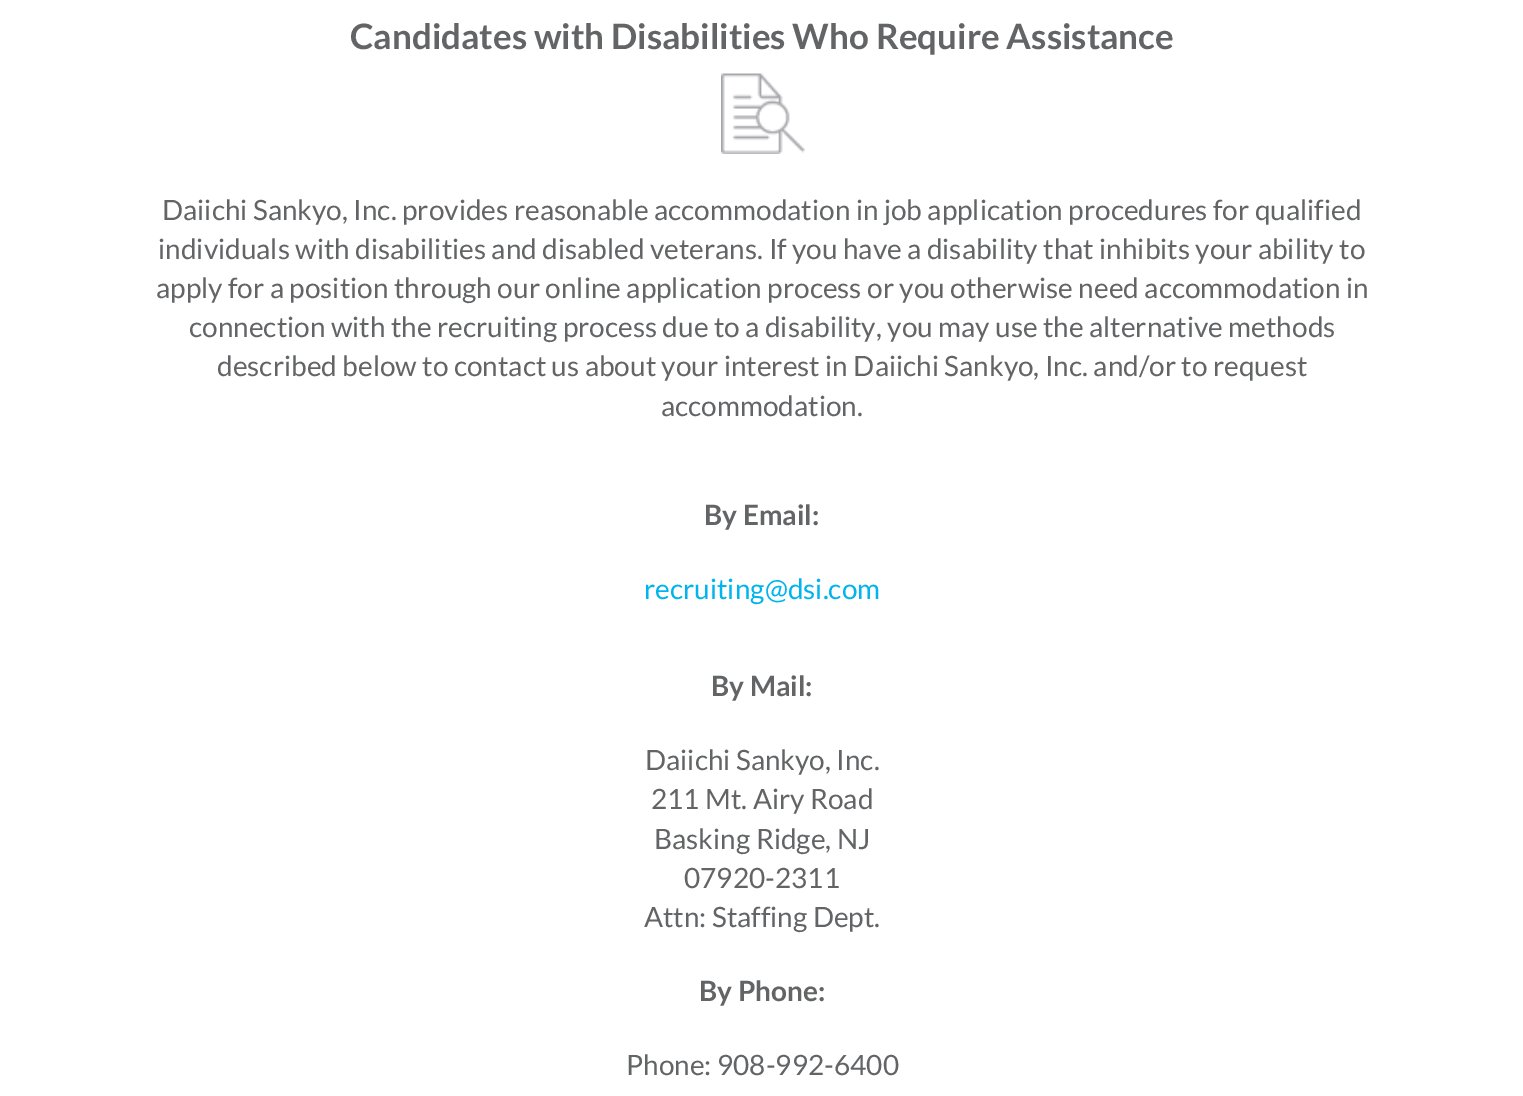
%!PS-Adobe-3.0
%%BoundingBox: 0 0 1523 1096
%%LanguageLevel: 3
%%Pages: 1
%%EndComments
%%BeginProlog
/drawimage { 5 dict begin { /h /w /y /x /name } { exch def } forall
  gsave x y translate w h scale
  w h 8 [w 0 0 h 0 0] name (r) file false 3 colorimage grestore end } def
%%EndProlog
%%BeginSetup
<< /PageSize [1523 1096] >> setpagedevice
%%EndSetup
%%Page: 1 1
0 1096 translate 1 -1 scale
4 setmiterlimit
1 setgray
0 0 1523 1096 rectfill
(images/1.raw) 721 73 84 81 drawimage
/Lato-Bold [35 0 0 -35 0 0] selectfont
0.388 0.392 0.4 setrgbcolor
350 49 moveto (Candidates with Disabilities Who Require Assistance) show
/Lato-Regular [28 0 0 -28 0 0] selectfont
162 220 moveto (Daiichi Sankyo, Inc. provides reasonable accommodation in job application procedures for qualified) show
158 259 moveto (individuals with disabilities and disabled veterans. If you have a disability that inhibits your ability to) show
156 298 moveto (apply for a position through our online application process or you otherwise need accommodation in) show
189 337 moveto (connection with the recruiting process due to a disability, you may use the alternative methods) show
217 376 moveto (described below to contact us about your interest in Daiichi Sankyo, Inc. and/or to request) show
661 416 moveto (accommodation.) show
/Lato-Bold [28 0 0 -28 0 0] selectfont
704 525 moveto (By Email:) show
/Lato-Regular [28 0 0 -28 0 0] selectfont
0 0.706 0.929 setrgbcolor
644 599 moveto (recruiting@dsi.com) show
/Lato-Bold [28 0 0 -28 0 0] selectfont
0.388 0.392 0.4 setrgbcolor
711 696 moveto (By Mail:) show
/Lato-Regular [28 0 0 -28 0 0] selectfont
645 770 moveto (Daiichi Sankyo, Inc.) show
651 809 moveto (211 Mt. Airy Road) show
654 849 moveto (Basking Ridge, NJ) show
684 888 moveto (07920-2311) show
644 927 moveto (Attn: Staffing Dept.) show
/Lato-Bold [28 0 0 -28 0 0] selectfont
699 1001 moveto (By Phone:) show
/Lato-Regular [28 0 0 -28 0 0] selectfont
626 1075 moveto (Phone: 908-992-6400) show
showpage
%%EOF
